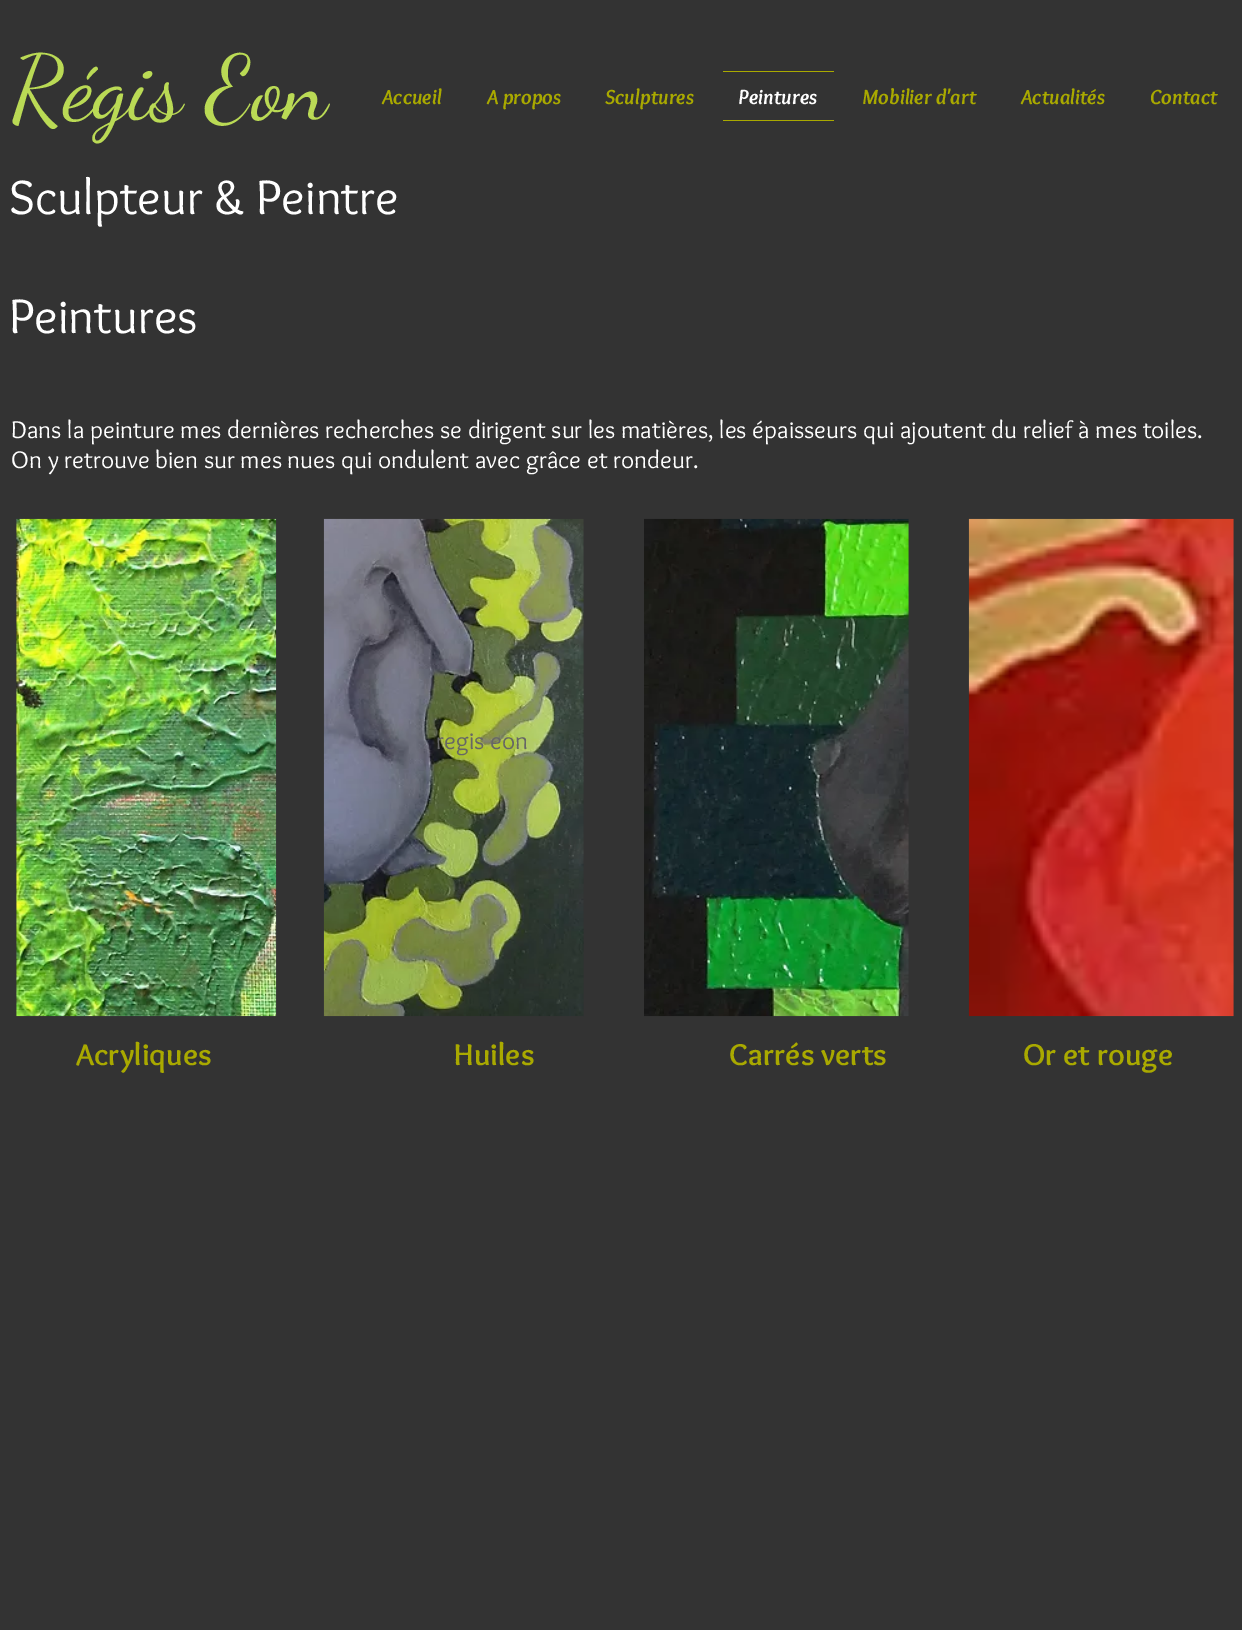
%!PS-Adobe-3.0
%%BoundingBox: 0 0 1242 1630
%%LanguageLevel: 3
%%Pages: 1
%%EndComments
%%BeginProlog
/drawimage { 5 dict begin { /h /w /y /x /name } { exch def } forall
  gsave x y translate w h scale
  w h 8 [w 0 0 h 0 0] name (r) file false 3 colorimage grestore end } def
%%EndProlog
%%BeginSetup
<< /PageSize [1242 1630] >> setpagedevice
%%EndSetup
%%Page: 1 1
0 1630 translate 1 -1 scale
4 setmiterlimit
0.2 setgray
0 0 1242 1630 rectfill
0.663 0.663 0 setrgbcolor
723 71 111 1 rectfill
723 120 111 1 rectfill
(images/1.raw) 16 518 261 499 drawimage
(images/2.raw) 323 518 261 499 drawimage
(images/3.raw) 644 518 265 499 drawimage
(images/4.raw) 968 518 266 499 drawimage
/DancingScript-Regular [91 0 0 -91 0 0] selectfont
0.729 0.855 0.333 setrgbcolor
11 118 moveto (Régis Eon) show
/Overlock-BoldItalic [21.25 0 0 -21.25 0 0] selectfont
0.663 0.663 0 setrgbcolor
382 104 moveto (Accueil) show
487 104 moveto (A propos) show
605 104 moveto (Sculptures) show
1 setgray
738 104 moveto (Peintures) show
0.663 0.663 0 setrgbcolor
862 104 moveto (Mobilier d'art) show
1021 104 moveto (Actualités) show
1150 104 moveto (Contact) show
/Overlock-Regular [50 0 0 -50 0 0] selectfont
1 setgray
9 214 moveto (Sculpteur & Peintre) show
9 333 moveto (Peintures) show
/Overlock-Regular [25 0 0 -25 0 0] selectfont
11 438 moveto (Dans la peinture mes dernières recherches se dirigent sur les matières, les épaisseurs qui ajoutent du relief à mes toiles.) show
11 468 moveto (On y retrouve bien sur mes nues qui ondulent avec grâce et rondeur.) show
0.4 setgray
436 749 moveto (regis eon) show
/Overlock-Bold [31.25 0 0 -31.25 0 0] selectfont
0.663 0.663 0 setrgbcolor
76 1065 moveto (Acryliques) show
454 1065 moveto (Huiles) show
729 1065 moveto (Carrés verts) show
1023 1065 moveto (Or et rouge) show
showpage
%%EOF
